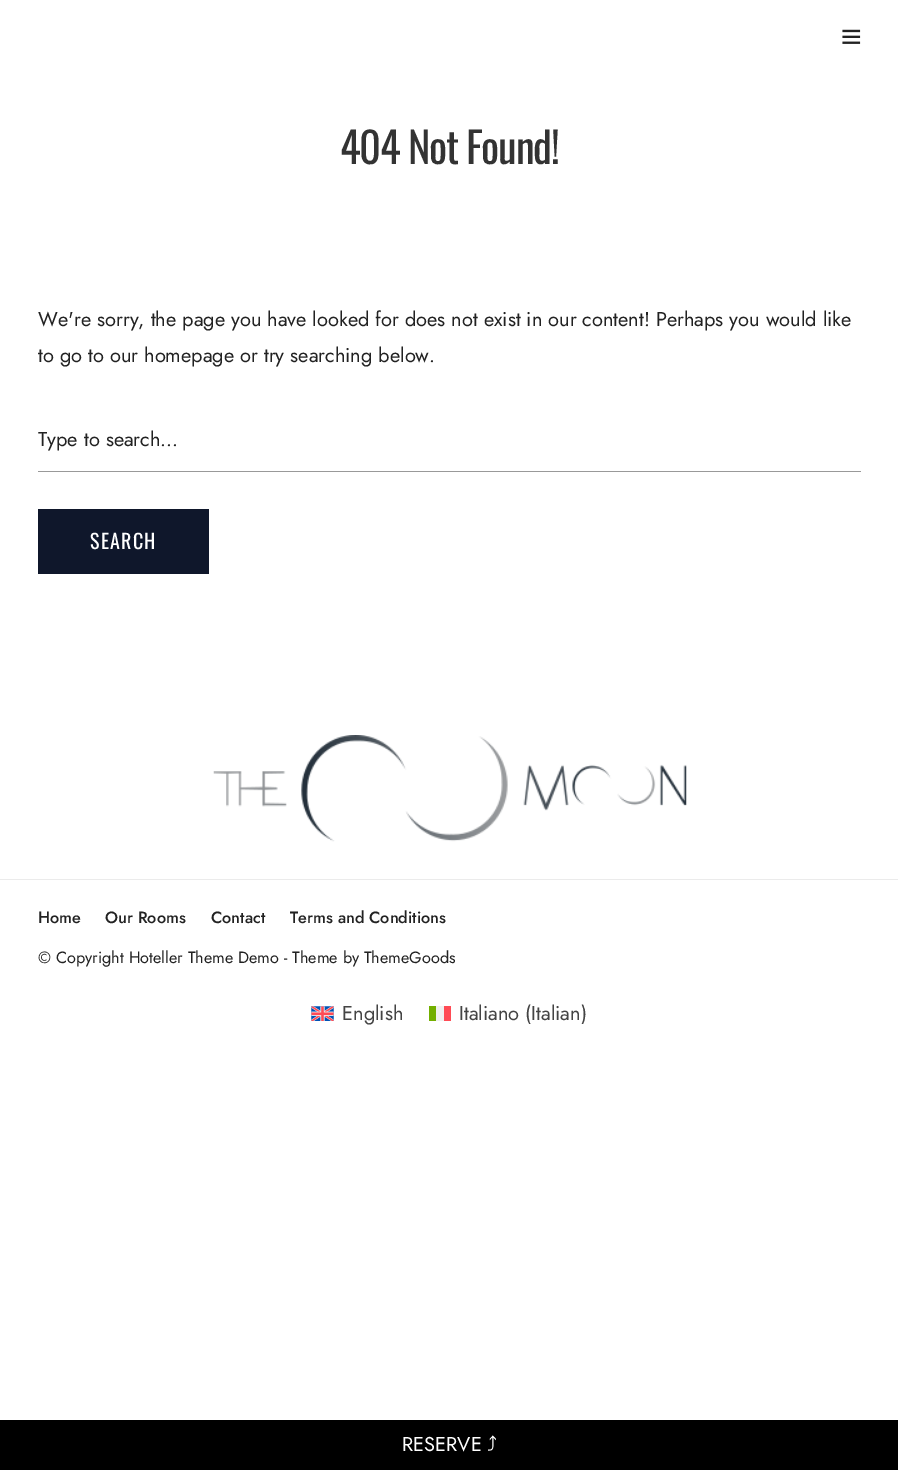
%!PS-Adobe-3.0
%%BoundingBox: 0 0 898 1470
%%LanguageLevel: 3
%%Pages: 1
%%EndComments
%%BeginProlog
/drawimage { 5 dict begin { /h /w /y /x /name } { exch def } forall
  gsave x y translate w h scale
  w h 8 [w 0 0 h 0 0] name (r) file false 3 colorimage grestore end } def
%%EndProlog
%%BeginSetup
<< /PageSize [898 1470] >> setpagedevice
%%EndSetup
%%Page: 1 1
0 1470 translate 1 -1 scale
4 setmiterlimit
1 setgray
0 0 898 1470 rectfill
(images/1.raw) 842 29 19 15 drawimage
0.6 setgray
38 471 823 1 rectfill
0.059 0.09 0.169 setrgbcolor
38 509 171 65 rectfill
(images/2.raw) 213 735 474 107 drawimage
0.922 setgray
0 879 898 1 rectfill
(images/3.raw) 311 1006 23 15 drawimage
0.451 0.686 0 setrgbcolor
429 1006 7 15 rectfill
0.941 setgray
436 1006 8 15 rectfill
1 0.294 0.333 setrgbcolor
444 1006 7 15 rectfill
0 setgray
0 1420 898 50 rectfill
/Oswald-Regular [42.5 0 0 -42.5 0 0] selectfont
0.2 setgray
340 164 moveto -1.25 0 (404 Not Found!) ashow
/Jost-Regular [20 0 0 -20 0 0] selectfont
0.133 setgray
38 326 moveto (We're sorry, the page you have looked for does not exist in our content! Perhaps you would like) show
38 362 moveto (to go to our homepage or try searching below.) show
38 446 moveto (Type to search...) show
/Oswald-Regular [20 0 0 -20 0 0] selectfont
1 setgray
90 549 moveto 1.25 0 (SEARCH) ashow
/Jost-Medium [16.25 0 0 -16.25 0 0] selectfont
0.133 setgray
38 923 moveto (Home) show
105 923 moveto (Our Rooms) show
211 923 moveto (Contact) show
290 923 moveto (Terms and Conditions) show
/Jost-Regular [16.25 0 0 -16.25 0 0] selectfont
38 963 moveto (© Copyright Hoteller Theme Demo - Theme by ThemeGoods) show
/Jost-Regular [20 0 0 -20 0 0] selectfont
0.267 setgray
342 1020 moveto (English) show
459 1020 moveto (Italiano \(Italian\)) show
1 setgray
402 1451 moveto (RESERVE) show
/IPAGothic-Regular [20 0 0 -20 0 0] selectfont
487 1451 moveto (⤴) show
showpage
%%EOF
